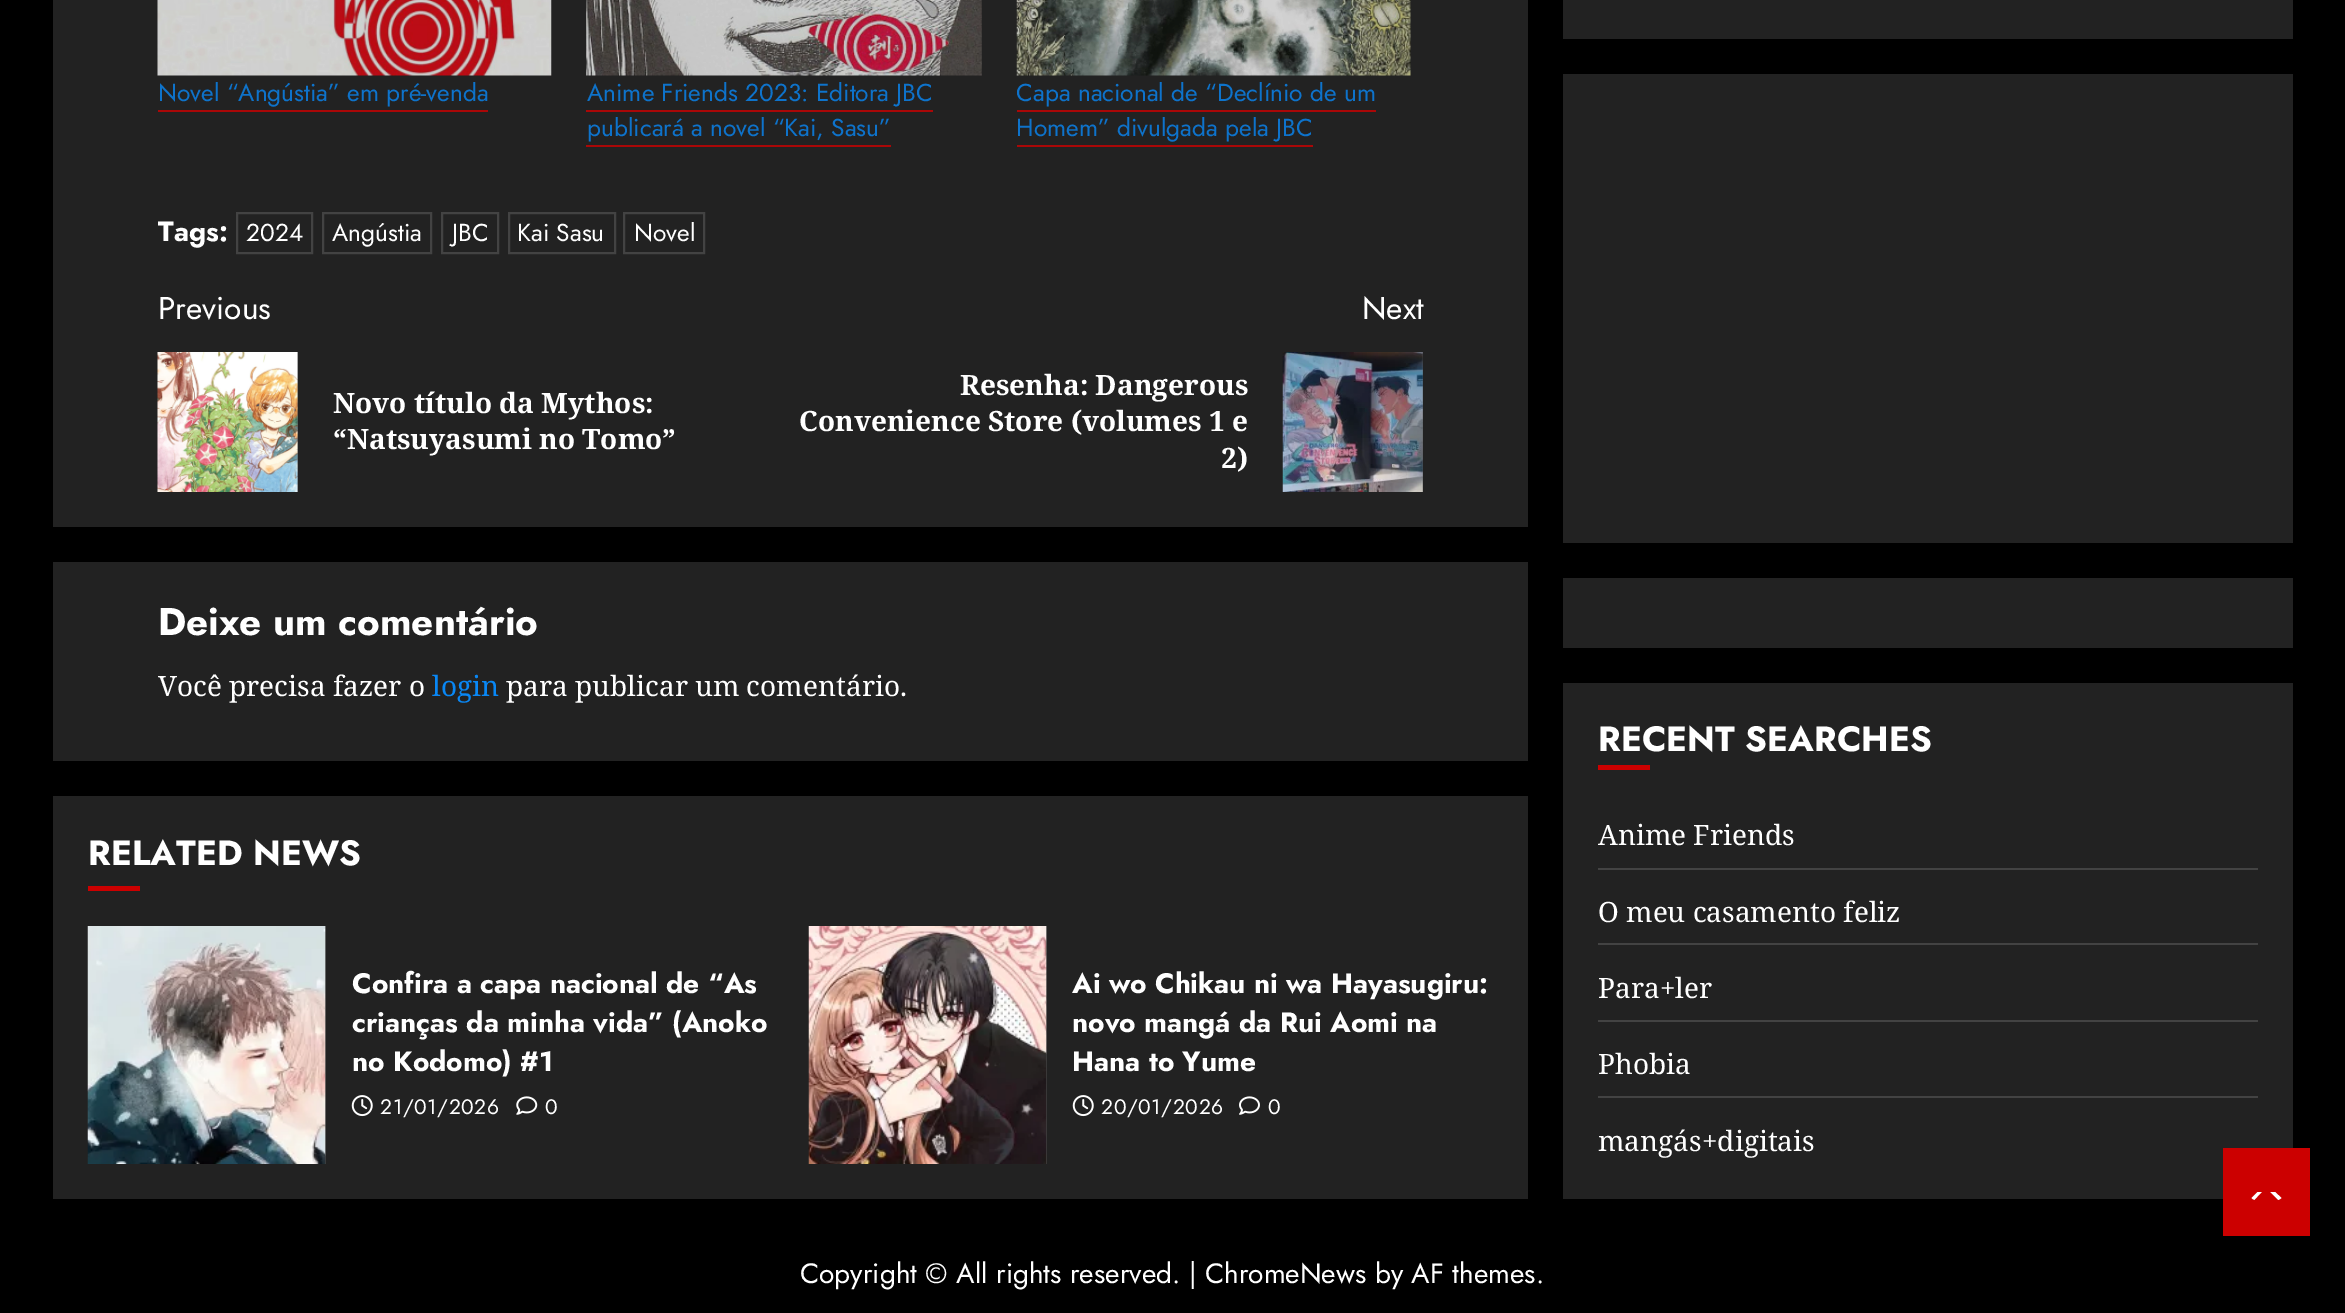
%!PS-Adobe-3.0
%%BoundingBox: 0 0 2345 1313
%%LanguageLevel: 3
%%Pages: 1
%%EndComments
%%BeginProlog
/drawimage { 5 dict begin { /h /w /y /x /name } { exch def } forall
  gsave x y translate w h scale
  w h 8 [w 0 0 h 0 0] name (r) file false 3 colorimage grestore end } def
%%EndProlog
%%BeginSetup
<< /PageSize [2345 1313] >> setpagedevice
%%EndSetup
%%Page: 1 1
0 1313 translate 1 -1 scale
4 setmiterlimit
0 setgray
0 0 2345 1313 rectfill
0.133 setgray
53 0 1475 527 rectfill
(images/1.raw) 157 0 395 76 drawimage
0.667 0.027 0.027 setrgbcolor
158 110 330 2 rectfill
(images/2.raw) 586 0 396 76 drawimage
586 110 347 2 rectfill
586 145 305 2 rectfill
(images/3.raw) 1016 0 395 76 drawimage
1017 110 359 2 rectfill
1017 145 296 2 rectfill
0.263 setgray
2 setlinewidth
237 213 75 40 rectstroke
323 213 108 40 rectstroke
442 213 56 40 rectstroke
509 213 106 40 rectstroke
624 213 80 40 rectstroke
0.349 setgray
297 352 1 140 rectfill
(images/4.raw) 157 352 141 140 drawimage
(images/5.raw) 1282 352 141 140 drawimage
0.133 setgray
53 562 1475 199 rectfill
53 796 1475 403 rectfill
0.8 0 0 setrgbcolor
88 886 52 5 rectfill
0.259 setgray
325 926 1 238 rectfill
(images/6.raw) 87 926 239 238 drawimage
(images/7.raw) 351 1095 22 22 drawimage
(images/8.raw) 516 1096 22 19 drawimage
1046 926 1 238 rectfill
(images/9.raw) 808 926 239 238 drawimage
(images/7.raw) 1072 1095 22 22 drawimage
(images/10.raw) 1239 1096 21 19 drawimage
0.133 setgray
1563 0 730 39 rectfill
1563 74 730 469 rectfill
1563 578 730 70 rectfill
1563 683 730 516 rectfill
0.8 0 0 setrgbcolor
1598 765 52 5 rectfill
0.263 setgray
1598 868 660 2 rectfill
1598 943 660 2 rectfill
1598 1020 660 2 rectfill
1598 1096 660 2 rectfill
0.8 0 0 setrgbcolor
2223 1148 87 88 rectfill
1 setgray
newpath 2257.5 1200.5 moveto 2275 1200.5 lineto 2277.5 1200.5 2279.5 1199.5 2281.5 1198 curveto 2275 1192 lineto 2257.5 1192 lineto 2251.5 1198 lineto 2253 1199.5 2255 1200.5 2257.5 1200.5 curveto closepath fill
0.8 0 0 setrgbcolor
newpath 2284 1206 moveto 2249 1206 lineto 2266 1188 lineto closepath fill
/Jost-Regular [24.5 0 0 -24.5 0 0] selectfont
0.055 0.451 0.796 setrgbcolor
158 101 moveto (Novel “Angústia” em pré-venda) show
587 101 moveto (Anime Friends 2023: Editora JBC) show
587 136 moveto (publicará a novel “Kai, Sasu”) show
1016 101 moveto (Capa nacional de “Declínio de um) show
1016 136 moveto (Homem” divulgada pela JBC) show
/Jost-Bold [28 0 0 -28 0 0] selectfont
1 setgray
158 241 moveto (Tags:) show
/Jost-Regular [24.5 0 0 -24.5 0 0] selectfont
246 241 moveto (2024) show
332 241 moveto (Angústia) show
452 241 moveto (JBC) show
517 241 moveto (Kai Sasu) show
634 241 moveto (Novel) show
/Jost-Regular [31.5 0 0 -31.5 0 0] selectfont
158 319 moveto (Previous) show
/NotoSerif-Bold [28 0 0 -28 0 0] selectfont
333 413 moveto (Novo título da Mythos:) show
333 449 moveto (“Natsuyasumi no Tomo”) show
/Jost-Regular [31.5 0 0 -31.5 0 0] selectfont
1362 319 moveto (Next) show
/NotoSerif-Bold [28 0 0 -28 0 0] selectfont
960 395 moveto (Resenha: Dangerous) show
799 431 moveto (Convenience Store \(volumes 1 e) show
1221 468 moveto (2\)) show
/Jost-Bold [38.5 0 0 -38.5 0 0] selectfont
158 635 moveto (Deixe um comentário) show
/NotoSerif-Regular [28 0 0 -28 0 0] selectfont
158 696 moveto (Você precisa fazer o) show
0.035 0.529 0.961 setrgbcolor
432 696 moveto (login) show
1 setgray
506 696 moveto (para publicar um comentário.) show
/Jost-Bold [35 0 0 -35 0 0] selectfont
88 865 moveto (RELATED NEWS) show
/Jost-Bold [28 0 0 -28 0 0] selectfont
352 993 moveto (Confira a capa nacional de “As) show
352 1032 moveto (crianças da minha vida” \(Anoko) show
352 1071 moveto (no Kodomo\) #1) show
/Jost-Regular [21 0 0 -21 0 0] selectfont
380 1114 moveto 0.6 0 (21/01/2026) ashow
545 1114 moveto 0.6 0 (0) ashow
/Jost-Bold [28 0 0 -28 0 0] selectfont
1072 993 moveto (Ai wo Chikau ni wa Hayasugiru:) show
1072 1032 moveto (novo mangá da Rui Aomi na) show
1072 1071 moveto (Hana to Yume) show
/Jost-Regular [21 0 0 -21 0 0] selectfont
1101 1114 moveto 0.6 0 (20/01/2026) ashow
1268 1114 moveto 0.6 0 (0) ashow
/Jost-Bold [35 0 0 -35 0 0] selectfont
1598 751 moveto (RECENT SEARCHES) show
/NotoSerif-Regular [28 0 0 -28 0 0] selectfont
1598 845 moveto (Anime Friends) show
1598 922 moveto (O meu casamento feliz) show
1598 998 moveto (Para+ler) show
1598 1074 moveto (Phobia) show
1598 1151 moveto (mangás+digitais) show
/Jost-Regular [28 0 0 -28 0 0] selectfont
800 1283 moveto (Copyright © All rights reserved. | ChromeNews by AF themes.) show
showpage
%%EOF
